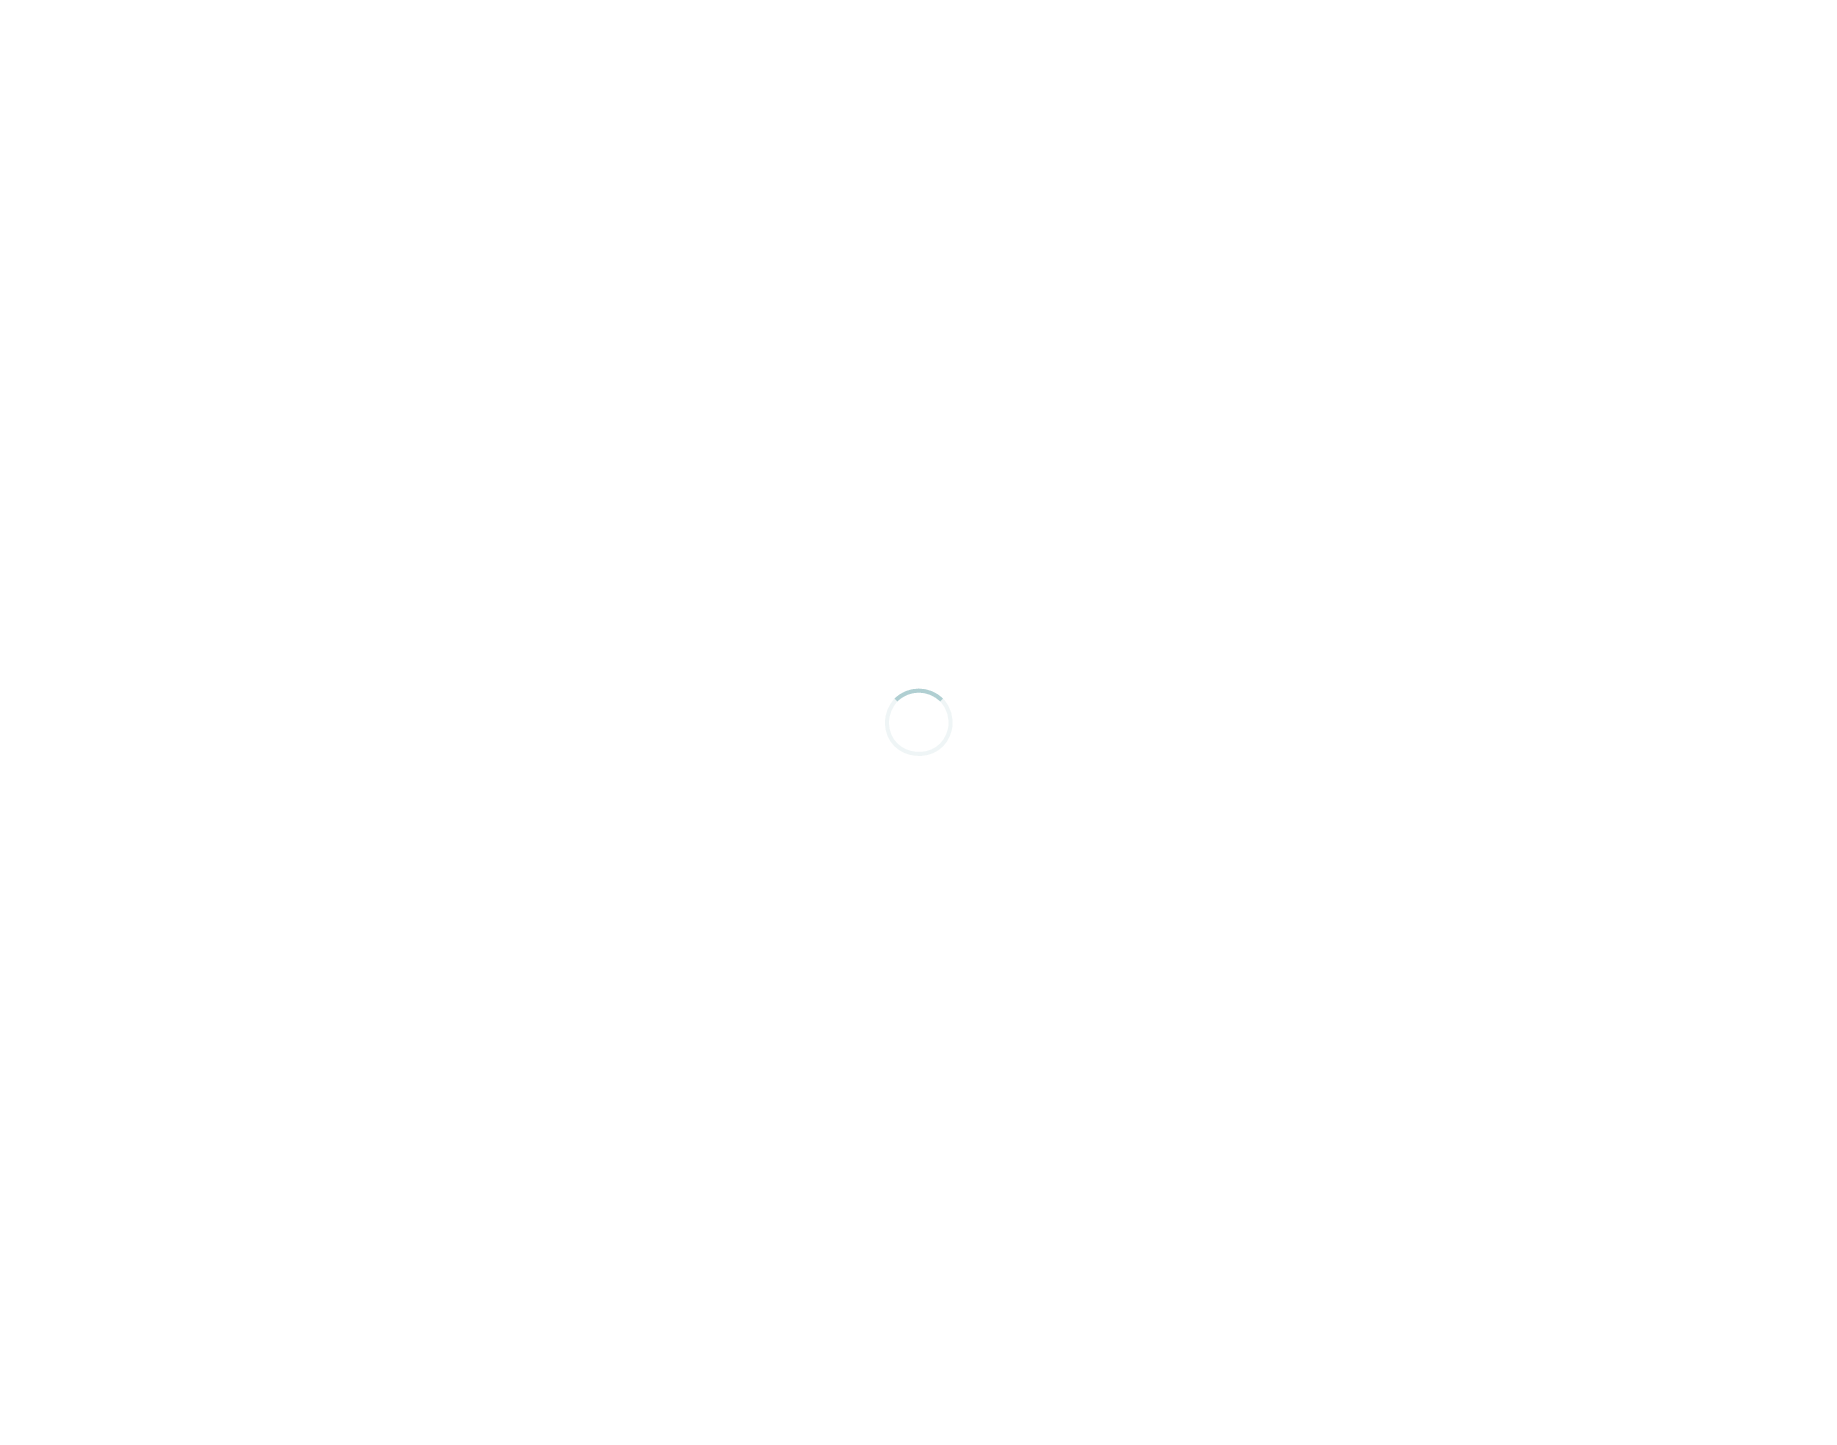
%!PS-Adobe-3.0
%%BoundingBox: 0 0 1837 1445
%%LanguageLevel: 3
%%Pages: 1
%%EndComments
%%BeginProlog
/setalpha { dup .setfillconstantalpha .setstrokeconstantalpha } def
%%EndProlog
%%BeginSetup
<< /PageSize [1837 1445] /PageUsesTransparency true >> setpagedevice
%%EndSetup
%%Page: 1 1
0 .pushpdf14devicefilter
0 1445 translate 1 -1 scale
4 setmiterlimit
1 setgray
0 0 1837 1445 rectfill
0.69 0.812 0.824 setrgbcolor
3.8 setlinewidth
newpath 896 700 moveto 908.5 687.5 929 687.5 941.5 700 curveto stroke
0.2 setalpha
newpath 941.5 700 moveto 949 707.5 952 718.5 950 728.5 curveto 942.5 766 887 760.5 887 722.5 curveto 887 714 890.5 706 896 700 curveto stroke
.poppdf14devicefilter showpage
%%EOF
